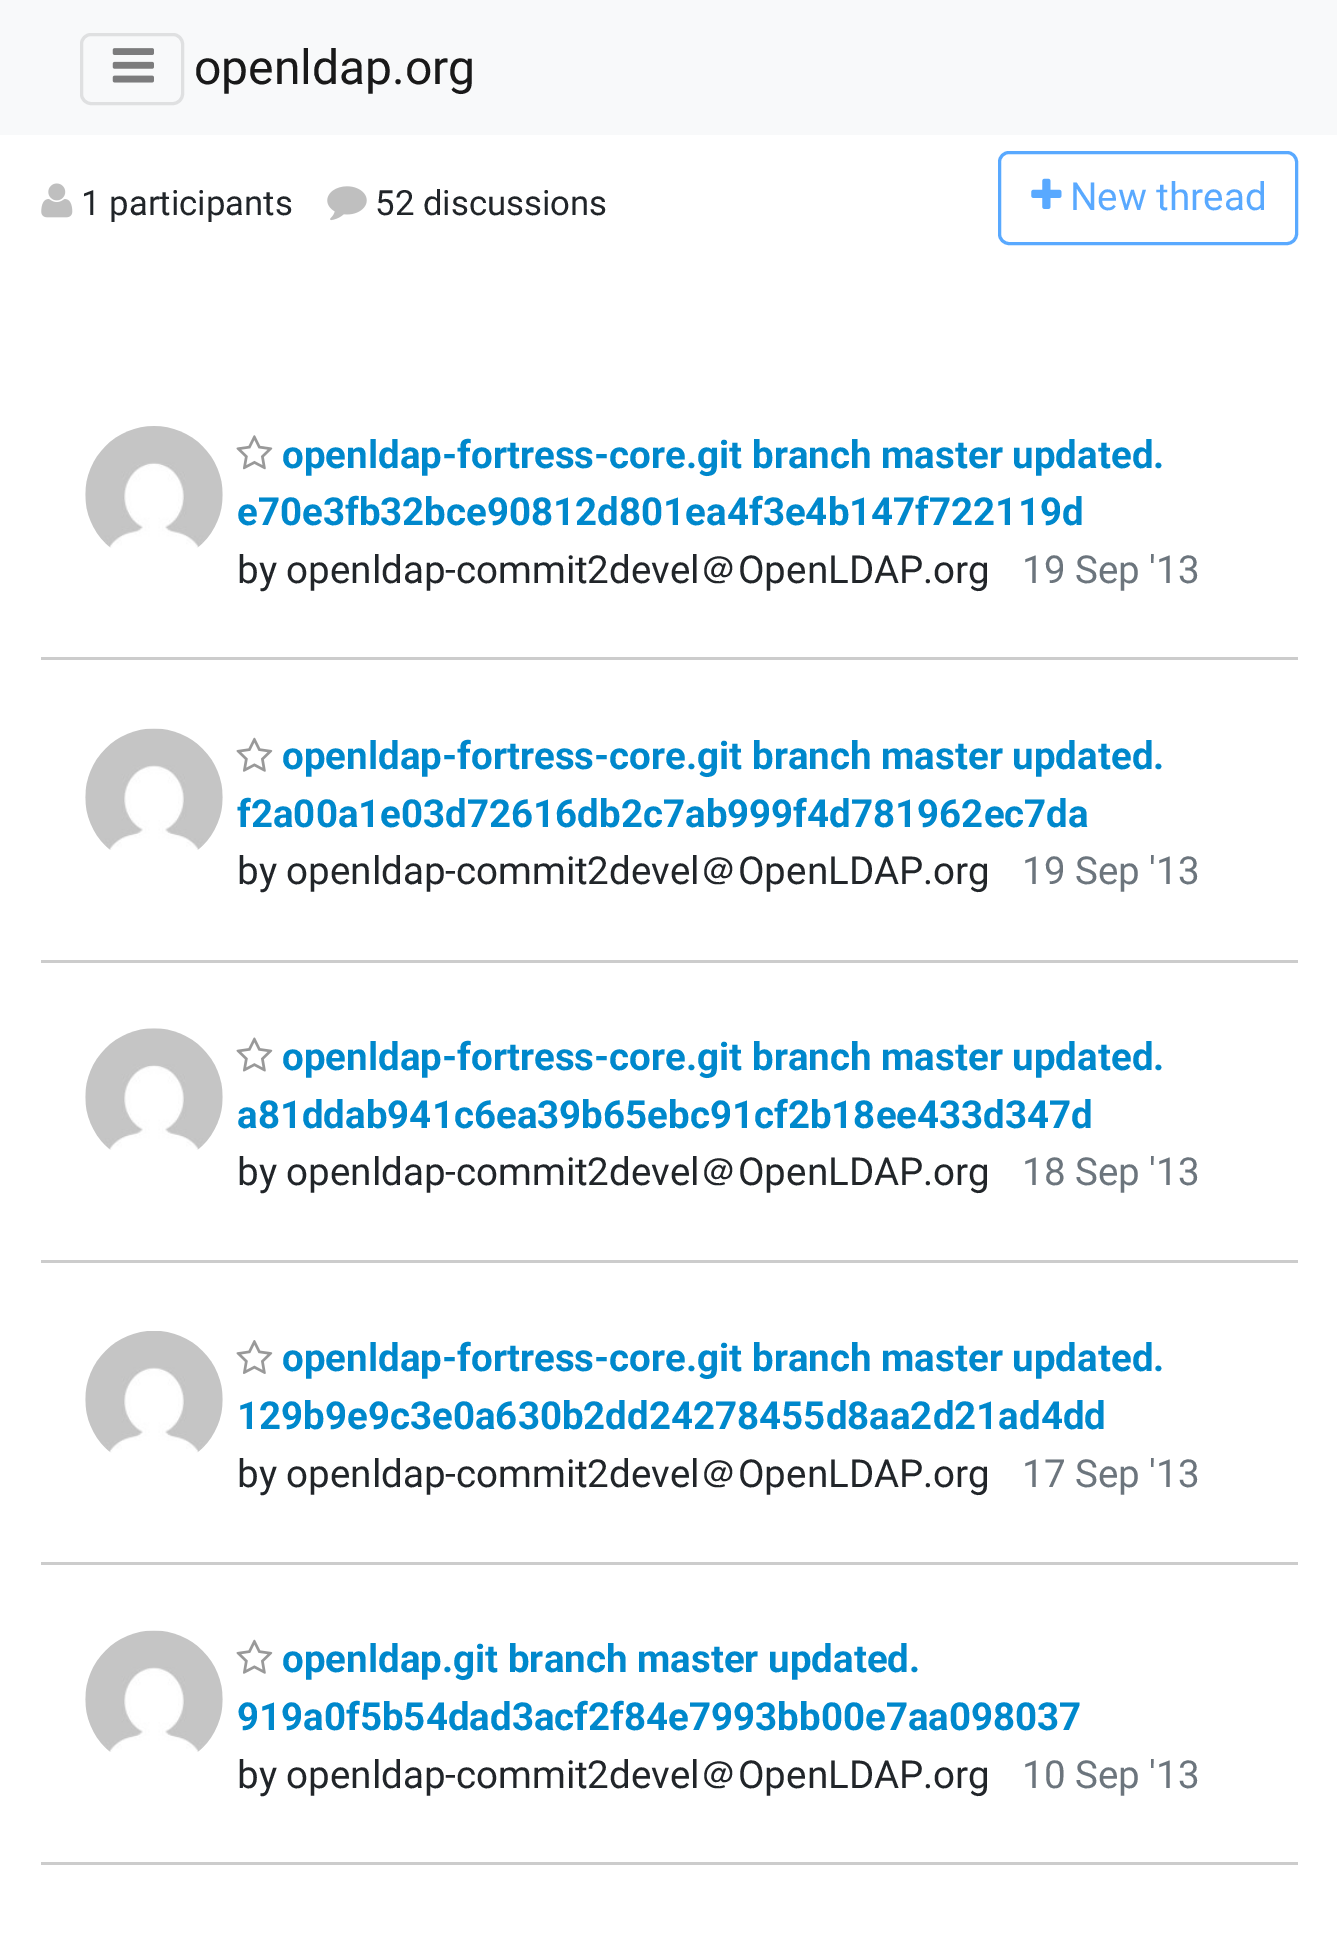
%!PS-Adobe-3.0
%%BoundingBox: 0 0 1337 1933
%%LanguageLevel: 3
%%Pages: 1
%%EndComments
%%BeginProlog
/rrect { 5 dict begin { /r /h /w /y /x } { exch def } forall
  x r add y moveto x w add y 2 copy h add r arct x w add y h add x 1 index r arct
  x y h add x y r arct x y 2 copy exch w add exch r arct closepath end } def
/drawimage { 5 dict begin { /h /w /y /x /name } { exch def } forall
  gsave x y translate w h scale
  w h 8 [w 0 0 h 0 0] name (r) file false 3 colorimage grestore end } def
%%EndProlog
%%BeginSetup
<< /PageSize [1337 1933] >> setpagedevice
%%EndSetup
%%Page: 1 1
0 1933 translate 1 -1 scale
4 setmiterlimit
1 setgray
0 0 1337 1933 rectfill
0.973 0.976 0.98 setrgbcolor
0 0 1337 135 rectfill
0.875 0.878 0.882 setrgbcolor
3 setlinewidth
81.5 34.5 101 69 9.5 rrect stroke
(images/1.raw) 112 48 42 35 drawimage
(images/2.raw) 41 183 32 35 drawimage
(images/3.raw) 327 186 40 35 drawimage
0.349 0.663 1 setrgbcolor
999.5 152.5 297 91 9.5 rrect stroke
(images/4.raw) 1031 178 31 31 drawimage
0.8 setgray
41 657 1257 3 rectfill
(images/5.raw) 85 426 138 122 drawimage
(images/6.raw) 236 435 37 35 drawimage
41 960 1257 3 rectfill
(images/7.raw) 85 728 138 122 drawimage
(images/8.raw) 236 737 37 35 drawimage
41 1260 1257 3 rectfill
(images/9.raw) 85 1028 138 122 drawimage
(images/10.raw) 236 1037 37 35 drawimage
41 1562 1257 3 rectfill
(images/11.raw) 85 1331 138 122 drawimage
(images/12.raw) 236 1340 37 34 drawimage
41 1862 1257 3 rectfill
(images/13.raw) 85 1630 138 122 drawimage
(images/8.raw) 236 1639 37 35 drawimage
/Roboto-Regular [48 0 0 -48 0 0] selectfont
0.098 setgray
194 84 moveto (openldap.org) show
/Roboto-Regular [34.75 0 0 -34.75 0 0] selectfont
0.129 0.145 0.161 setrgbcolor
81 215 moveto (1 participants) show
375 215 moveto (52 discussions) show
/Roboto-Regular [38.5 0 0 -38.5 0 0] selectfont
0.349 0.663 1 setrgbcolor
1070 210 moveto (New thread) show
/Roboto-Bold [38.5 0 0 -38.5 0 0] selectfont
0 0.533 0.8 setrgbcolor
282 468 moveto (openldap-fortress-core.git branch master updated.) show
237 525 moveto (e70e3fb32bce90812d801ea4f3e4b147f722119d) show
/Roboto-Regular [38.5 0 0 -38.5 0 0] selectfont
0.129 0.145 0.161 setrgbcolor
237 583 moveto (by openldap-commit2devel) show
/WenQuanYiZenHei-Medium [38.5 0 0 -38.5 0 0] selectfont
699 583 moveto (＠) show
/Roboto-Regular [38.5 0 0 -38.5 0 0] selectfont
738 583 moveto (OpenLDAP.org) show
0.424 0.459 0.49 setrgbcolor
1022 583 moveto (19 Sep '13) show
/Roboto-Bold [38.5 0 0 -38.5 0 0] selectfont
0 0.533 0.8 setrgbcolor
282 769 moveto (openldap-fortress-core.git branch master updated.) show
237 827 moveto (f2a00a1e03d72616db2c7ab999f4d781962ec7da) show
/Roboto-Regular [38.5 0 0 -38.5 0 0] selectfont
0.129 0.145 0.161 setrgbcolor
237 884 moveto (by openldap-commit2devel) show
/WenQuanYiZenHei-Medium [38.5 0 0 -38.5 0 0] selectfont
699 884 moveto (＠) show
/Roboto-Regular [38.5 0 0 -38.5 0 0] selectfont
738 884 moveto (OpenLDAP.org) show
0.424 0.459 0.49 setrgbcolor
1022 884 moveto (19 Sep '13) show
/Roboto-Bold [38.5 0 0 -38.5 0 0] selectfont
0 0.533 0.8 setrgbcolor
282 1070 moveto (openldap-fortress-core.git branch master updated.) show
237 1128 moveto (a81ddab941c6ea39b65ebc91cf2b18ee433d347d) show
/Roboto-Regular [38.5 0 0 -38.5 0 0] selectfont
0.129 0.145 0.161 setrgbcolor
237 1185 moveto (by openldap-commit2devel) show
/WenQuanYiZenHei-Medium [38.5 0 0 -38.5 0 0] selectfont
699 1185 moveto (＠) show
/Roboto-Regular [38.5 0 0 -38.5 0 0] selectfont
738 1185 moveto (OpenLDAP.org) show
0.424 0.459 0.49 setrgbcolor
1022 1185 moveto (18 Sep '13) show
/Roboto-Bold [38.5 0 0 -38.5 0 0] selectfont
0 0.533 0.8 setrgbcolor
282 1371 moveto (openldap-fortress-core.git branch master updated.) show
237 1429 moveto (129b9e9c3e0a630b2dd24278455d8aa2d21ad4dd) show
/Roboto-Regular [38.5 0 0 -38.5 0 0] selectfont
0.129 0.145 0.161 setrgbcolor
237 1487 moveto (by openldap-commit2devel) show
/WenQuanYiZenHei-Medium [38.5 0 0 -38.5 0 0] selectfont
699 1487 moveto (＠) show
/Roboto-Regular [38.5 0 0 -38.5 0 0] selectfont
738 1487 moveto (OpenLDAP.org) show
0.424 0.459 0.49 setrgbcolor
1022 1487 moveto (17 Sep '13) show
/Roboto-Bold [38.5 0 0 -38.5 0 0] selectfont
0 0.533 0.8 setrgbcolor
282 1672 moveto (openldap.git branch master updated.) show
237 1730 moveto (919a0f5b54dad3acf2f84e7993bb00e7aa098037) show
/Roboto-Regular [38.5 0 0 -38.5 0 0] selectfont
0.129 0.145 0.161 setrgbcolor
237 1788 moveto (by openldap-commit2devel) show
/WenQuanYiZenHei-Medium [38.5 0 0 -38.5 0 0] selectfont
699 1788 moveto (＠) show
/Roboto-Regular [38.5 0 0 -38.5 0 0] selectfont
738 1788 moveto (OpenLDAP.org) show
0.424 0.459 0.49 setrgbcolor
1022 1788 moveto (10 Sep '13) show
showpage
%%EOF
